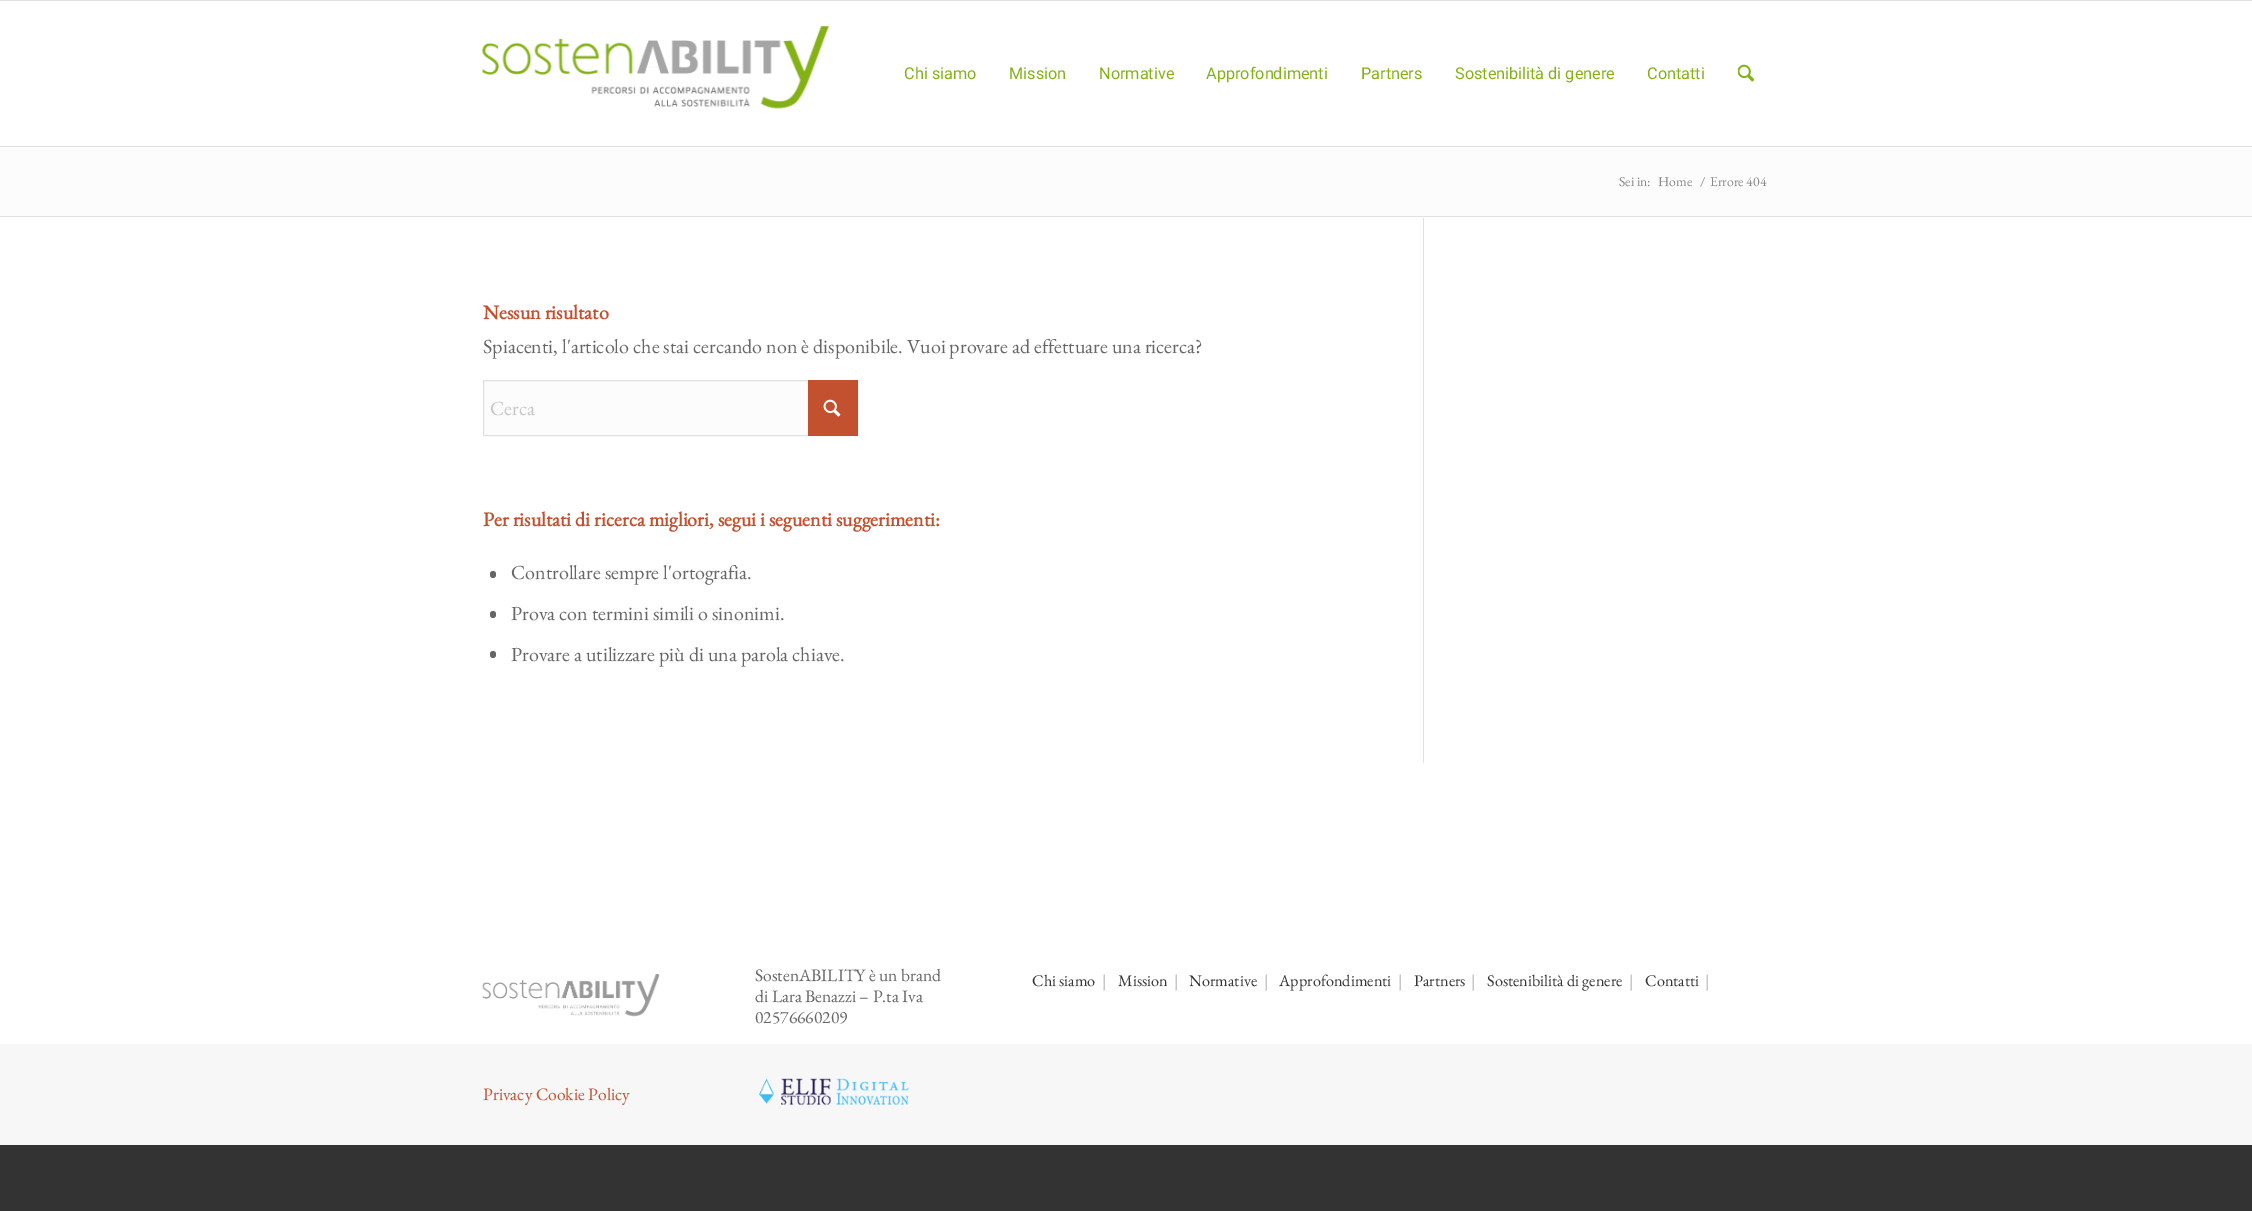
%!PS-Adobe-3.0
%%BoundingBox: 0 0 2252 1211
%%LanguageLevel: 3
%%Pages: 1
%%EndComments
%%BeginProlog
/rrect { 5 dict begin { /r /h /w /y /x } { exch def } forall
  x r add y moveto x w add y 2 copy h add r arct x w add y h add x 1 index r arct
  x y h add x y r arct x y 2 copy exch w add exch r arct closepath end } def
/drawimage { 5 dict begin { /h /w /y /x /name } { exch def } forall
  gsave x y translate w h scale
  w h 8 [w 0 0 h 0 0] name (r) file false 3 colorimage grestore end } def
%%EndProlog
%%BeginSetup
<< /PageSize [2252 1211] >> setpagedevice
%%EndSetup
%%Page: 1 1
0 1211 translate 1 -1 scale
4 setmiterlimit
0.2 setgray
0 0 2252 1211 rectfill
1 setgray
0 217 2252 827 rectfill
0 1 2252 144 rectfill
0.882 setgray
0 0 2252 1 rectfill
0 146 2252 1 rectfill
(images/1.raw) 482 26 347 83 drawimage
(images/2.raw) 1738 64 16 18 drawimage
0.988 setgray
0 148 2252 68 rectfill
1 setgray
0 147 2252 1 rectfill
0.996 setgray
0 145 2252 1 rectfill
0.882 setgray
0 216 2252 1 rectfill
1423 218 1 545 rectfill
0.988 setgray
484 381 324 54 rectfill
0.882 setgray
483.5 380.5 374 55 rectstroke
0.765 0.318 0.184 setrgbcolor
808 380 50 56 rectfill
(images/3.raw) 823 399 18 18 drawimage
0.4 setgray
490 571 6 7 3 rrect fill
490 611 6 7 3 rrect fill
490 651 6 7 3 rrect fill
(images/4.raw) 482 973 178 44 drawimage
0.969 setgray
0 1044 2252 101 rectfill
(images/5.raw) 759 1078 150 27 drawimage
/Roboto-Regular [16.25 0 0 -16.25 0 0] selectfont
0.514 0.698 0.086 setrgbcolor
904 79 moveto (Chi siamo) show
1009 79 moveto (Mission) show
1099 79 moveto (Normative) show
1206 79 moveto (Approfondimenti) show
1361 79 moveto (Partners) show
1455 79 moveto (Sostenibilità di genere) show
1647 79 moveto (Contatti) show
/EBGaramond-Regular [13.75 0 0 -13.75 0 0] selectfont
0.533 setgray
1619 186 moveto (Sei in:) show
1658 186 moveto (Home) show
1700 186 moveto (/) show
1710 186 moveto (Errore 404) show
/EBGaramond-Bold [20 0 0 -20 0 0] selectfont
0.765 0.318 0.184 setrgbcolor
483 319 moveto (Nessun risultato) show
/EBGaramond-Regular [20 0 0 -20 0 0] selectfont
0.4 setgray
483 353 moveto (Spiacenti, l'articolo che stai cercando non è disponibile. Vuoi provare ad effettuare una ricerca?) show
0.78 setgray
490 415 moveto (Cerca) show
/EBGaramond-Bold [20 0 0 -20 0 0] selectfont
0.765 0.318 0.184 setrgbcolor
483 526 moveto (Per risultati di ricerca migliori, segui i seguenti suggerimenti:) show
/EBGaramond-Regular [20 0 0 -20 0 0] selectfont
0.4 setgray
511 579 moveto (Controllare sempre l'ortografia.) show
511 620 moveto (Prova con termini simili o sinonimi.) show
511 661 moveto (Provare a utilizzare più di una parola chiave.) show
/EBGaramond-Regular [17.5 0 0 -17.5 0 0] selectfont
755 981 moveto (SostenABILITY è un brand) show
755 1002 moveto (di Lara Benazzi – P.ta Iva) show
755 1023 moveto (02576660209) show
/EBGaramond-Regular [16.25 0 0 -16.25 0 0] selectfont
0.2 setgray
1032 986 moveto (Chi siamo) show
0.6 setgray
1102 986 moveto (|) show
0.2 setgray
1118 986 moveto (Mission) show
0.6 setgray
1174 986 moveto (|) show
0.2 setgray
1189 986 moveto (Normative) show
0.6 setgray
1264 986 moveto (|) show
0.2 setgray
1279 986 moveto (Approfondimenti) show
0.6 setgray
1398 986 moveto (|) show
0.2 setgray
1414 986 moveto (Partners) show
0.6 setgray
1471 986 moveto (|) show
0.2 setgray
1487 986 moveto (Sostenibilità di genere) show
0.6 setgray
1629 986 moveto (|) show
0.2 setgray
1645 986 moveto (Contatti) show
0.6 setgray
1705 986 moveto (|) show
/EBGaramond-Regular [17.5 0 0 -17.5 0 0] selectfont
0.765 0.318 0.184 setrgbcolor
483 1100 moveto (Privacy Cookie Policy) show
showpage
%%EOF
